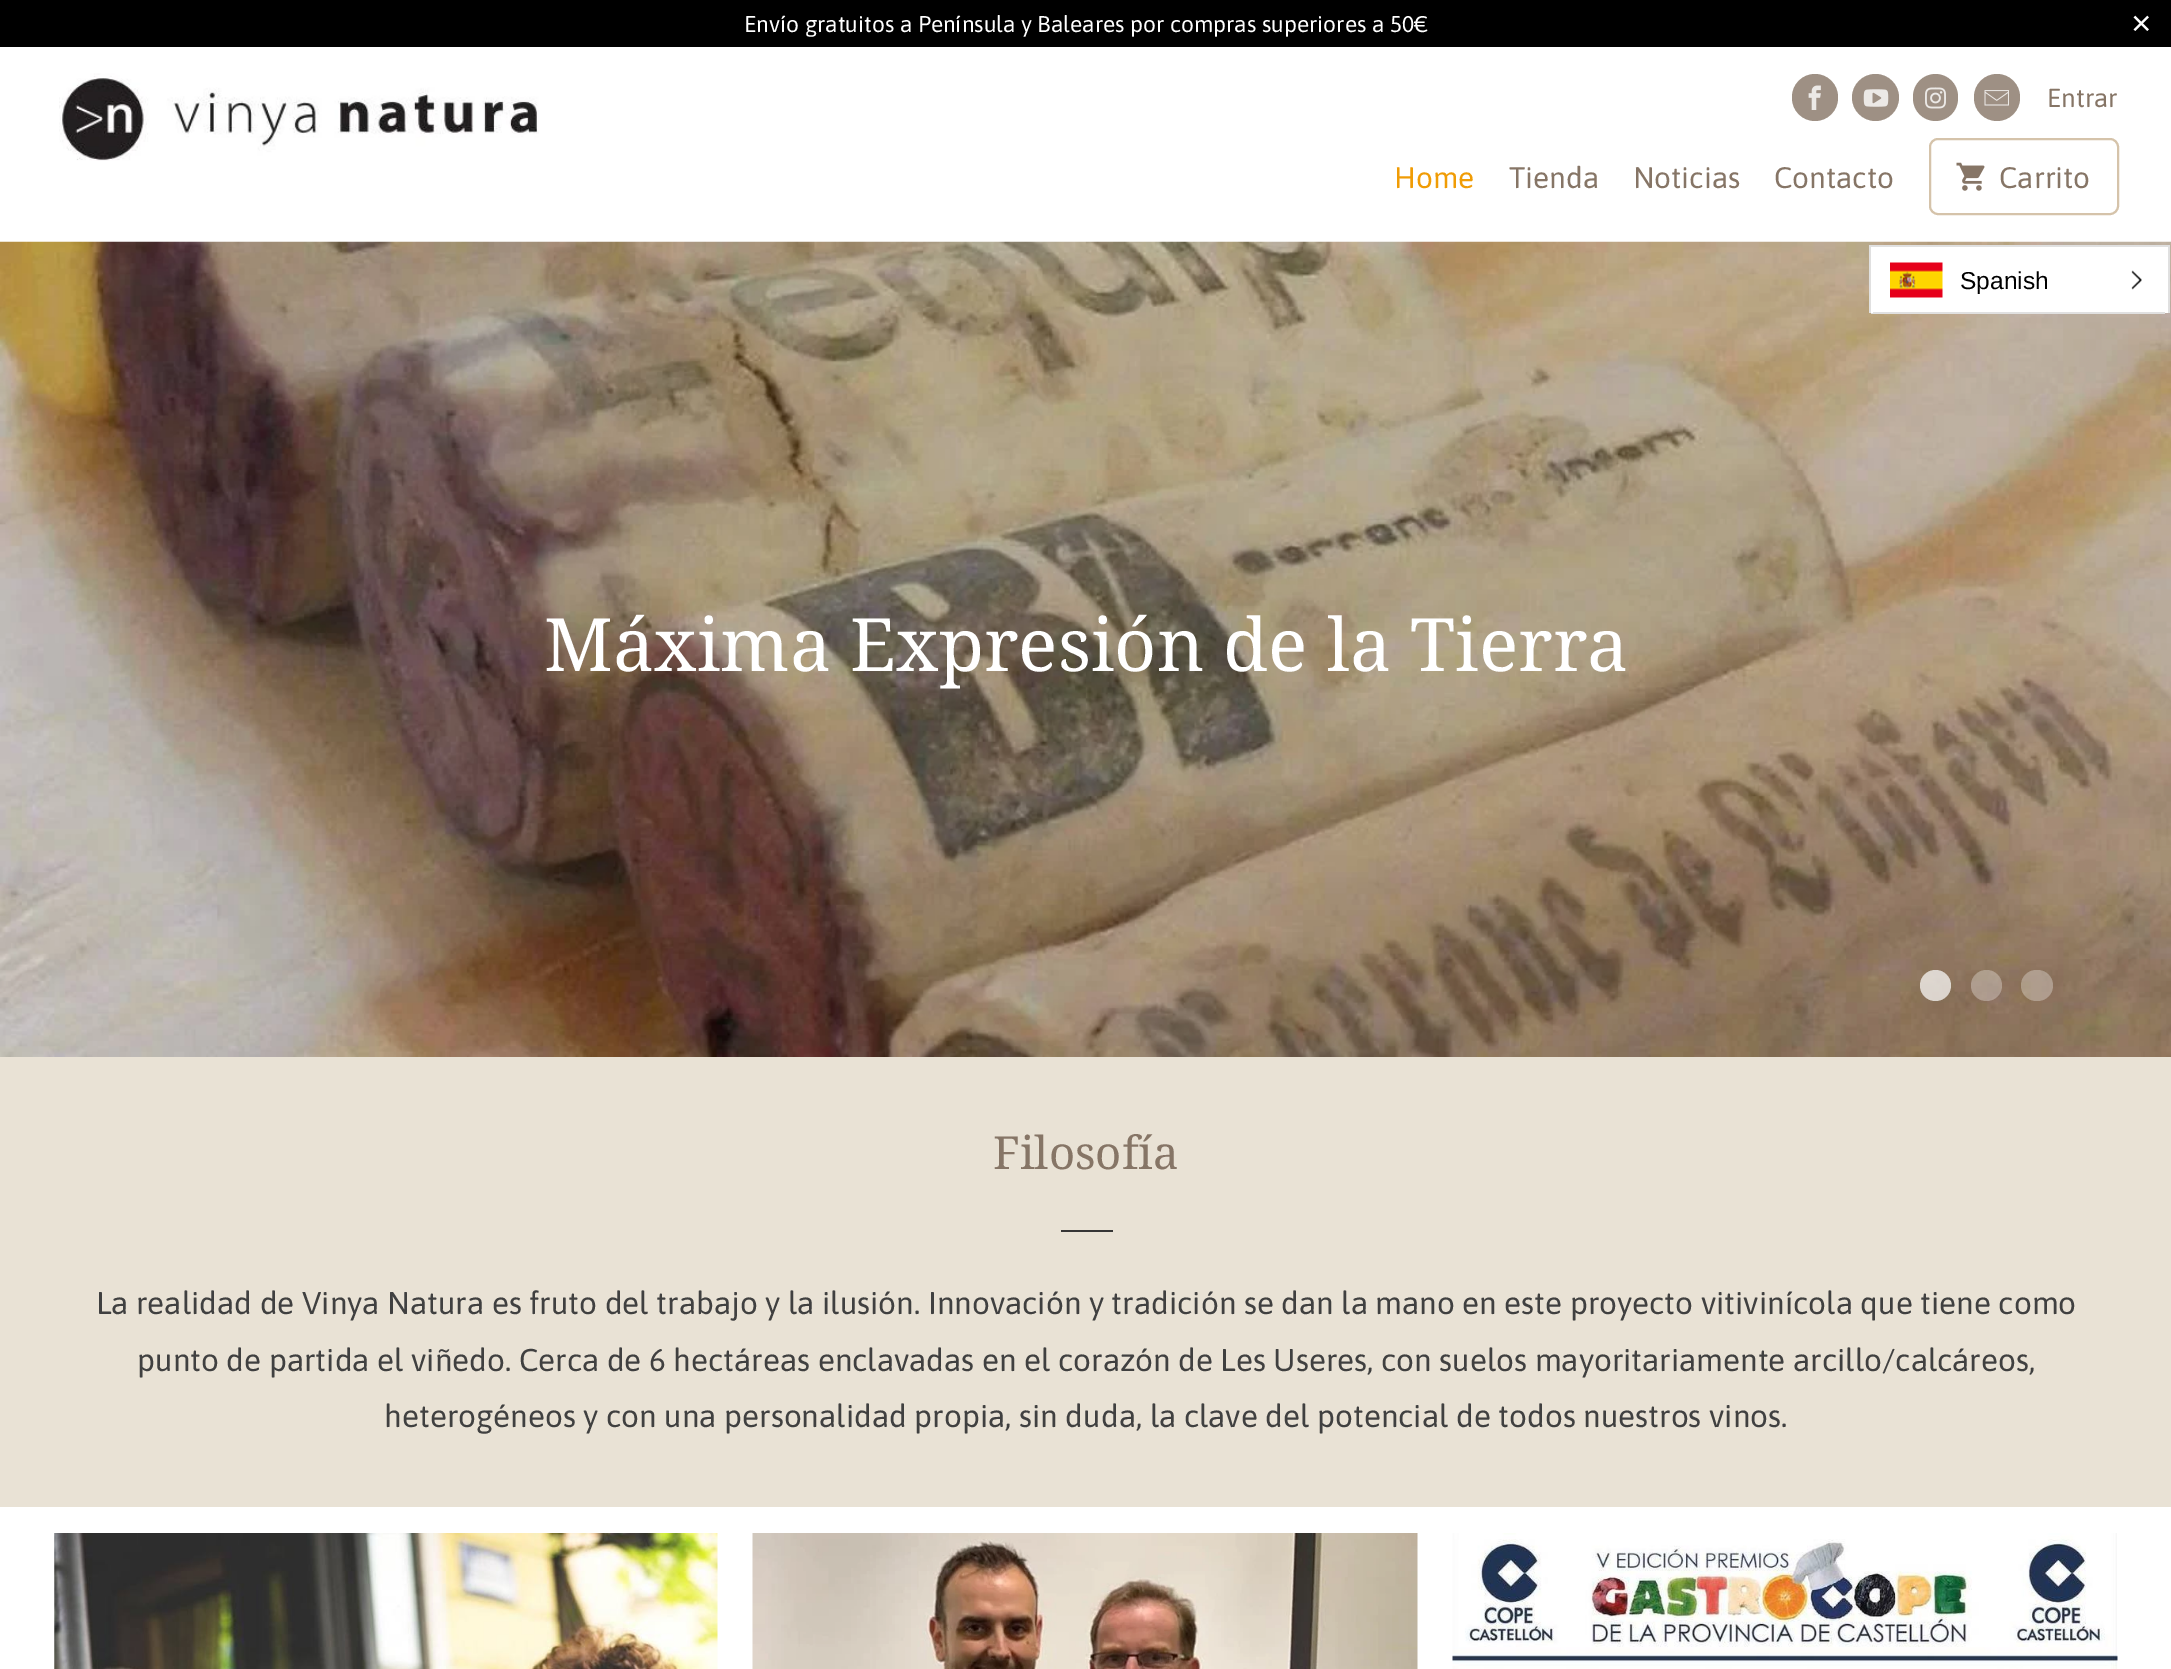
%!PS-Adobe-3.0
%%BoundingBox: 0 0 2171 1669
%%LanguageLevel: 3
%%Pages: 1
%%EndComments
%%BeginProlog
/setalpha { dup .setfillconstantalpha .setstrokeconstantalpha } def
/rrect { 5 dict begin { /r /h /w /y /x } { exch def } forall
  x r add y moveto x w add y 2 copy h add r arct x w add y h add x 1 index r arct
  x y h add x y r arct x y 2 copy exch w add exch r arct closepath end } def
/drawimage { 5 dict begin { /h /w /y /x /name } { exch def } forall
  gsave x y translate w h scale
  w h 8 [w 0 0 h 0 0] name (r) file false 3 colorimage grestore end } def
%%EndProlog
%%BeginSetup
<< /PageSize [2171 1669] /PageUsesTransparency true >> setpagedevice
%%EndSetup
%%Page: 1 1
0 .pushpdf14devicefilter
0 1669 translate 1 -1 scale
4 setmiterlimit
1 setgray
0 0 2171 1669 rectfill
0 setgray
0 0 2171 47 rectfill
(images/1.raw) 59 73 480 88 drawimage
0.62 0.565 0.518 setrgbcolor
1792 74 46 47 23 rrect fill
(images/2.raw) 1808 85 13 25 drawimage
newpath 1875.5 97.5 23.5 0 360 arc closepath fill
(images/3.raw) 1863 89 26 18 drawimage
1913 74 45 47 22.5 rrect fill
(images/4.raw) 1925 87 21 22 drawimage
1974 74 46 47 23 rrect fill
(images/5.raw) 1984 90 25 16 drawimage
0.835 0.765 0.667 setrgbcolor
2 setlinewidth
1930 139 188 75 8 rrect stroke
(images/6.raw) 1956 162 29 29 drawimage
(images/9.raw) 0 241 2171 816 drawimage
1 setgray
1873 247 295 66 rectfill
0.878 setgray
1869 245 301 2 rectfill
2168 245 2 68 rectfill
1869 245 2 68 rectfill
1871 312 294 2 rectfill
1 setgray
1871 247 2 66 rectfill
(images/7.raw) 1890 262 53 36 drawimage
(images/8.raw) 2131 270 11 20 drawimage
0.7 setalpha
newpath 1935.5 985.5 15.5 0 360 arc closepath fill
0.3 setalpha
newpath 1986.5 985.5 15.5 0 360 arc closepath fill
2021 970 32 31 15.5 rrect fill
1 setalpha
0.914 0.886 0.835 setrgbcolor
0 1057 2171 450 rectfill
0.212 setgray
1061 1230 52 2 rectfill
(images/10.raw) 54 1533 664 136 drawimage
(images/11.raw) 752 1533 666 136 drawimage
(images/12.raw) 1452 1533 666 136 drawimage
/Asap-Regular [22.75 0 0 -22.75 0 0] selectfont
1 setgray
744 32 moveto (Envío gratuitos a Península y Baleares por compras superiores a 50€) show
/LiberationSans-Regular [35 0 0 -35 0 0] selectfont
2131 35 moveto (×) show
/Asap-Regular [26 0 0 -26 0 0] selectfont
0.525 0.459 0.4 setrgbcolor
2047 107 moveto (Entrar) show
/Asap-Regular [29.75 0 0 -29.75 0 0] selectfont
0.941 0.612 0.02 setrgbcolor
1394 188 moveto (Home) show
0.525 0.459 0.4 setrgbcolor
1509 188 moveto (Tienda) show
1633 188 moveto (Noticias) show
1774 188 moveto (Contacto) show
1999 188 moveto (Carrito) show
/LiberationSans-Regular [24.5 0 0 -24.5 0 0] selectfont
0 setgray
1960 289 moveto (Spanish) show
/NotoSerif-Regular [73.5 0 0 -73.5 0 0] selectfont
1 setgray
544 671 moveto (Máxima Expresión de la Tierra) show
/NotoSerif-Regular [45.5 0 0 -45.5 0 0] selectfont
0.525 0.459 0.4 setrgbcolor
993 1169 moveto (Filosofía) show
/Asap-Regular [31.5 0 0 -31.5 0 0] selectfont
0.251 setgray
96 1314 moveto (La realidad de Vinya Natura es fruto del trabajo y la ilusión. Innovación y tradición se dan la mano en este proyecto vitivinícola que tiene como) show
137 1371 moveto (punto de partida el viñedo. Cerca de 6 hectáreas enclavadas en el corazón de Les Useres, con suelos mayoritariamente arcillo/calcáreos,) show
384 1427 moveto (heterogéneos y con una personalidad propia, sin duda, la clave del potencial de todos nuestros vinos.) show
.poppdf14devicefilter showpage
%%EOF
